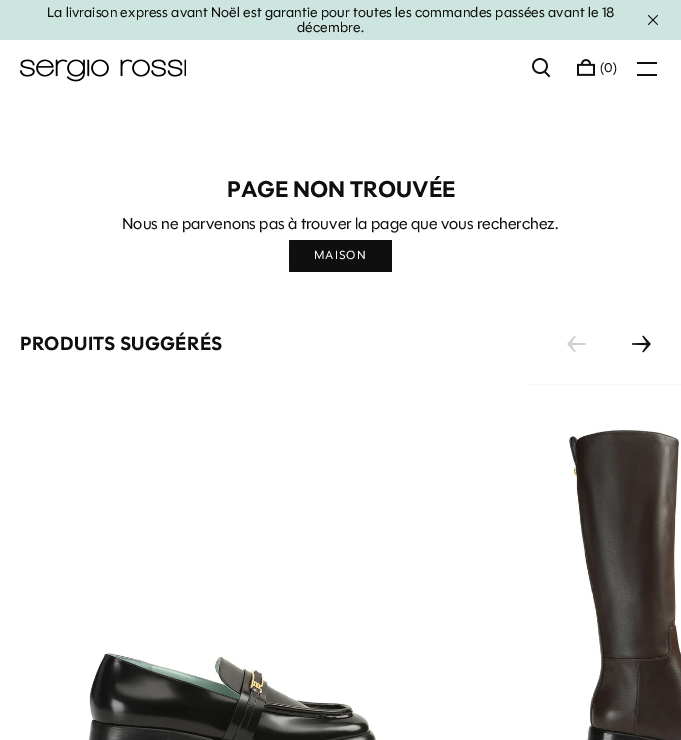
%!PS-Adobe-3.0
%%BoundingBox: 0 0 681 740
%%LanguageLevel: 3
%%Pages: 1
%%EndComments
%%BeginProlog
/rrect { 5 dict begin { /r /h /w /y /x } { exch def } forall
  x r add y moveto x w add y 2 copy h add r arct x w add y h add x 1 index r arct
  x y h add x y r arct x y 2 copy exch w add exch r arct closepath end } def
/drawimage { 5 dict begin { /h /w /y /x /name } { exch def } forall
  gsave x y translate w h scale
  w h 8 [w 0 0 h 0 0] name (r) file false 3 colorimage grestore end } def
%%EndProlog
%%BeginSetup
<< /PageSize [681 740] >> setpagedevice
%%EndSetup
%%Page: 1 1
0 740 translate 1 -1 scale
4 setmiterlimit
1 setgray
0 0 681 740 rectfill
0.8 0.898 0.875 setrgbcolor
0 0 681 40 rectfill
(images/1.raw) 647 14 11 12 drawimage
(images/2.raw) 20 59 166 23 drawimage
(images/3.raw) 532 58 19 20 drawimage
(images/4.raw) 577 59 18 17 drawimage
(images/5.raw) 637 62 20 14 drawimage
0.059 setgray
289 240 103 32 1 rrect fill
(images/6.raw) 567 335 19 18 drawimage
(images/7.raw) 632 335 19 18 drawimage
(images/8.raw) 88 652 289 88 drawimage
(images/9.raw) 526 384 155 356 drawimage
/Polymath-Regular [14 0 0 -14 0 0] selectfont
47 17 moveto 0.15 0 (La livraison express avant Noël est garantie pour toutes les commandes passées avant le 18) ashow
297 32 moveto 0.15 0 (décembre.) ashow
/Polymath-Regular [13 0 0 -13 0 0] selectfont
600 72 moveto (\(0\)) show
/Polymath-Bold [23.25 0 0 -23.25 0 0] selectfont
227 197 moveto (PAGE NON TROUVÉE) show
/Polymath-Regular [16 0 0 -16 0 0] selectfont
122 229 moveto (Nous ne parvenons pas à trouver la page que vous recherchez.) show
/Polymath-Regular [12 0 0 -12 0 0] selectfont
1 setgray
314 259 moveto 1 0 (MAISON) ashow
/Polymath-Bold [19.5 0 0 -19.5 0 0] selectfont
0.059 setgray
20 350 moveto 0.25 0 (PRODUITS SUGGÉRÉS) ashow
showpage
%%EOF
